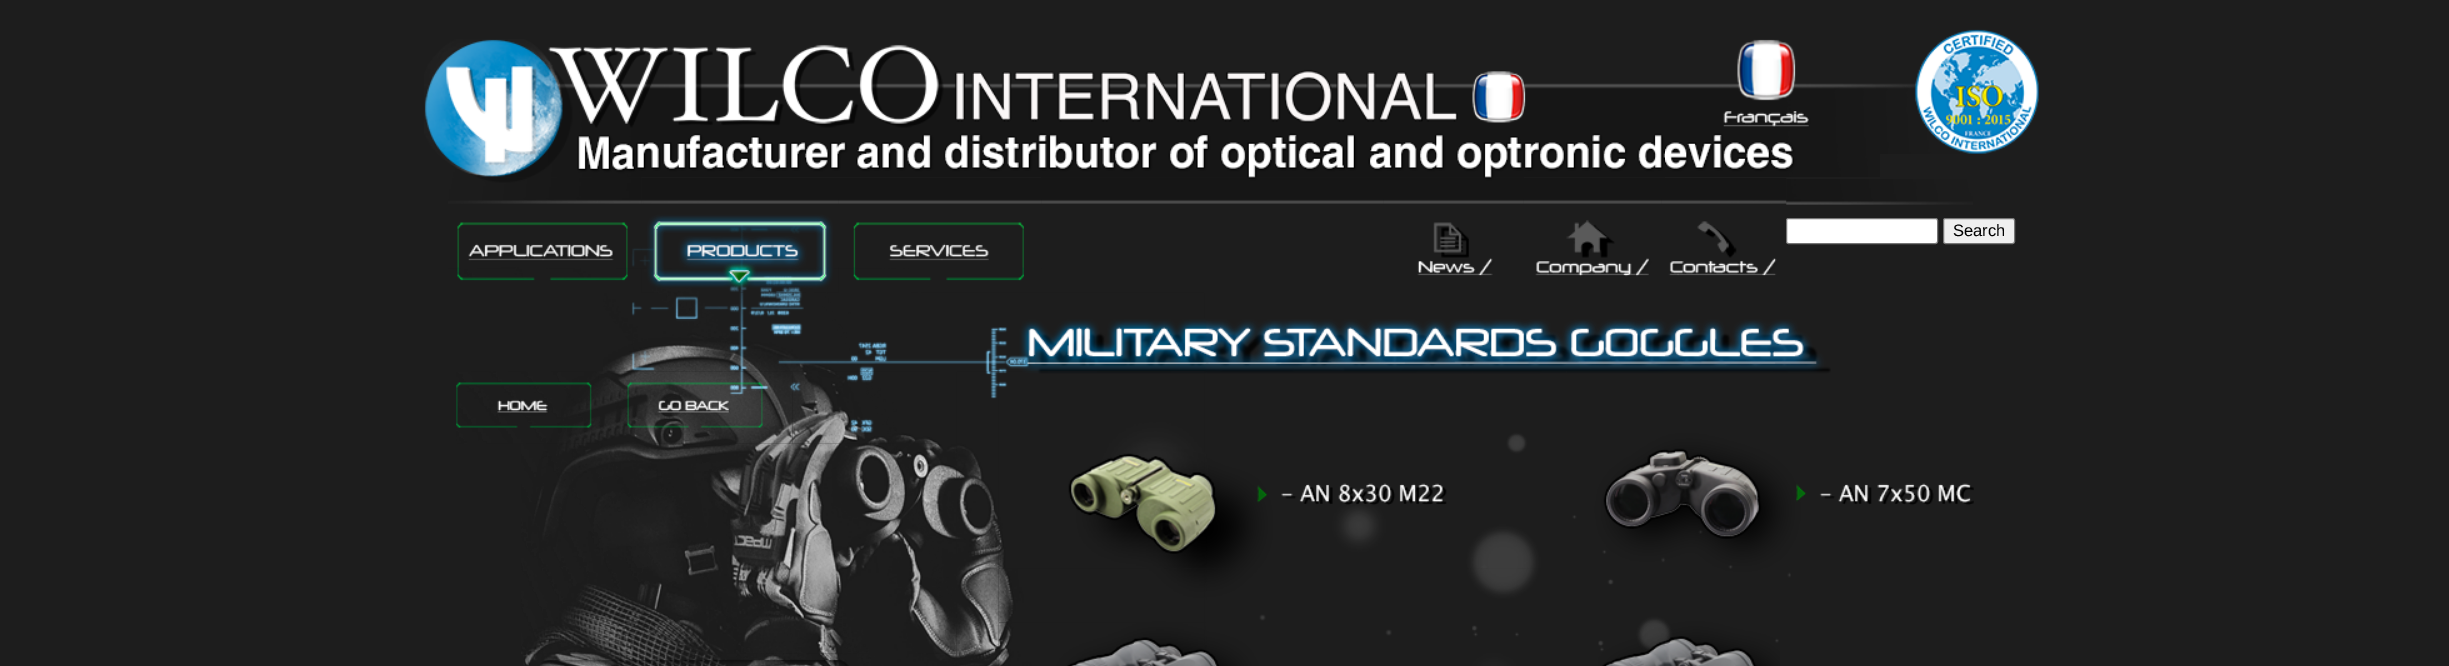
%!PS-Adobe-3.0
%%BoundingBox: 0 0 2449 666
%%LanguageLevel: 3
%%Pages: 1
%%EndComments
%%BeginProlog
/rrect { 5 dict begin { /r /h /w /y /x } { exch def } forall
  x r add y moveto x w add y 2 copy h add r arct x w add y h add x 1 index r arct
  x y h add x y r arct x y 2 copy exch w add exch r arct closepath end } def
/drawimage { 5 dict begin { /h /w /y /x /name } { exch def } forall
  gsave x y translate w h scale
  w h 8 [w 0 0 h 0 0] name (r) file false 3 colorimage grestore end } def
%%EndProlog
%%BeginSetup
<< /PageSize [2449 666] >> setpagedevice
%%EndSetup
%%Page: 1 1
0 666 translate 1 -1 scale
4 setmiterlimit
0.114 setgray
0 0 2449 666 rectfill
(images/1.raw) 424 39 1241 139 drawimage
(images/2.raw) 1665 39 215 138 drawimage
(images/3.raw) 1880 29 159 125 drawimage
(images/4.raw) 448 177 194 104 drawimage
(images/5.raw) 641 178 198 115 drawimage
(images/6.raw) 838 178 204 103 drawimage
(images/7.raw) 1041 177 343 27 drawimage
(images/8.raw) 1383 177 141 99 drawimage
(images/9.raw) 1523 178 139 99 drawimage
(images/10.raw) 1661 178 126 98 drawimage
(images/11.raw) 1786 179 187 26 drawimage
1 setgray
1786.5 218.5 151 25 2 rrect gsave fill grestore
0.463 setgray
stroke
0.937 setgray
1943.5 218.5 71 25 2 rrect gsave fill grestore
0.463 setgray
stroke
(images/12.raw) 603 292 1228 80 drawimage
(images/13.raw) 456 371 154 73 drawimage
(images/14.raw) 610 371 183 73 drawimage
(images/15.raw) 792 371 147 73 drawimage
(images/16.raw) 521 443 436 211 drawimage
(images/17.raw) 523 653 434 13 drawimage
(images/18.raw) 956 371 43 295 drawimage
(images/19.raw) 998 371 475 198 drawimage
(images/20.raw) 1472 371 94 198 drawimage
(images/21.raw) 1566 371 408 198 drawimage
(images/22.raw) 998 568 793 55 drawimage
(images/23.raw) 998 622 394 44 drawimage
(images/24.raw) 1472 625 47 41 drawimage
(images/25.raw) 1598 622 182 44 drawimage
/LiberationSans-Regular [16.5 0 0 -16.5 0 0] selectfont
0 setgray
1953 236 moveto (Search) show
showpage
%%EOF
